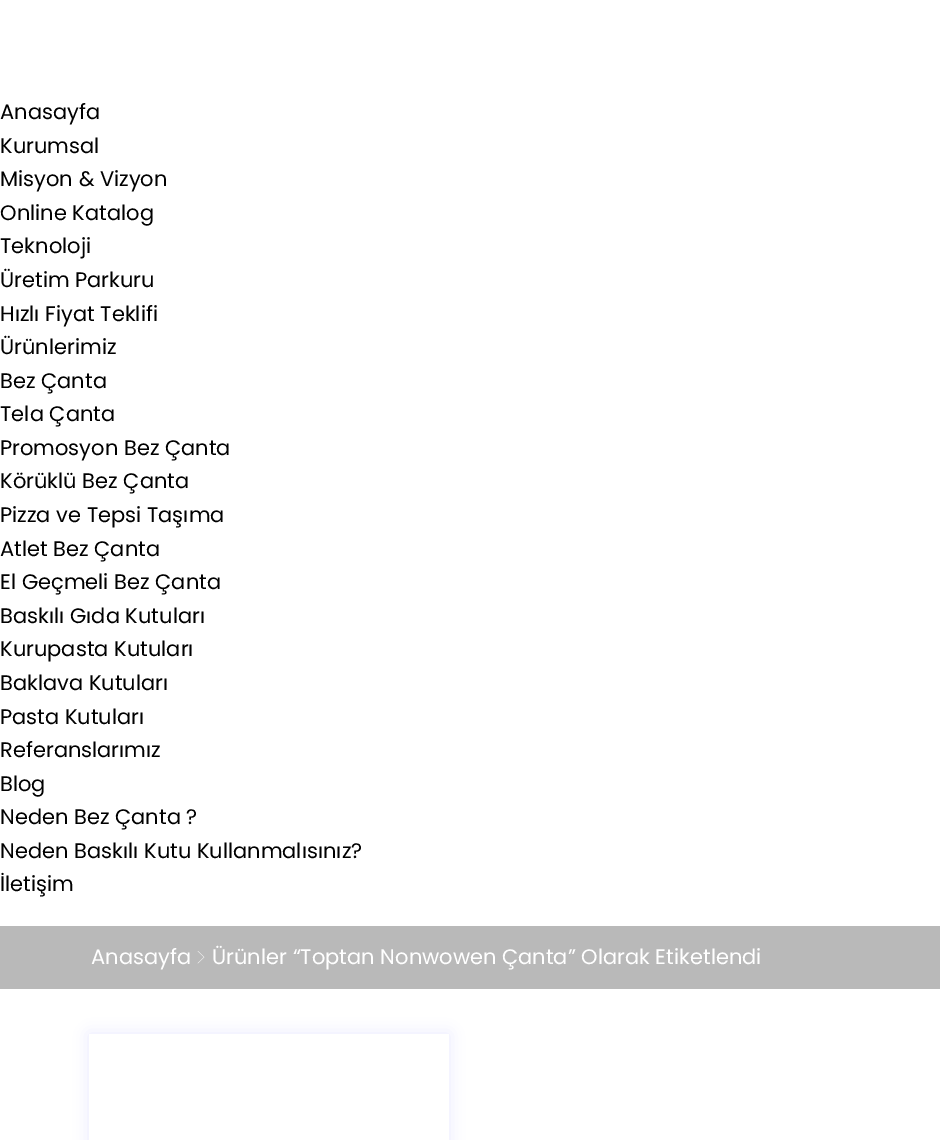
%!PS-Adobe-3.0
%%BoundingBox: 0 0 940 1140
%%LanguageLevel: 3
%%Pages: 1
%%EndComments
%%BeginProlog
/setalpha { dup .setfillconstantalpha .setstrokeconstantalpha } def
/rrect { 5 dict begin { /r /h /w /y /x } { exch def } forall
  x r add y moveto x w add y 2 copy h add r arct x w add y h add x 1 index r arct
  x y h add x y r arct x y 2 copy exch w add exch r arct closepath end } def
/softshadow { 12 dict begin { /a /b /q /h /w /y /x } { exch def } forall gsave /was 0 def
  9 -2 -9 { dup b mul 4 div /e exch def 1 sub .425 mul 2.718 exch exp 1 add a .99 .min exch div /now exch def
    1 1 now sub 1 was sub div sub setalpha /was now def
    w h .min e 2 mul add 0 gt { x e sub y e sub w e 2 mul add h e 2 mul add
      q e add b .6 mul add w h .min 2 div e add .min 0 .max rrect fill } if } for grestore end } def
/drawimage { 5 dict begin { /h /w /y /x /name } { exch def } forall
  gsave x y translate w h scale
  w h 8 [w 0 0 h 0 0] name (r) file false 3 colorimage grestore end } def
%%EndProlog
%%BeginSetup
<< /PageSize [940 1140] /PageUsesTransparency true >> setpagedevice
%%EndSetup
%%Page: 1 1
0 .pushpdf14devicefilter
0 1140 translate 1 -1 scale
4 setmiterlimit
1 setgray
0 0 940 1140 rectfill
0.725 setgray
0 926 940 63 rectfill
(images/1.raw) 197 951 8 13 drawimage
gsave
newpath 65 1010 moveto 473 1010 lineto 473 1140 lineto 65 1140 lineto closepath 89 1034 moveto 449 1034 lineto 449 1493 lineto 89 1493 lineto closepath eoclip newpath
0.58 0.573 0.961 setrgbcolor
89 1034 360 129 0 7.5 0.2 softshadow
grestore
/Poppins-Regular [21 0 0 -21 0 0] selectfont
0 setgray
0 119 moveto (Anasayfa) show
0 153 moveto (Kurumsal) show
0 186 moveto (Misyon & Vizyon) show
0 220 moveto (Online Katalog) show
0 253 moveto (Teknoloji) show
0 287 moveto (Üretim Parkuru) show
0 321 moveto (Hızlı Fiyat Teklifi) show
0 354 moveto (Ürünlerimiz) show
0 388 moveto (Bez Çanta) show
0 421 moveto (Tela Çanta) show
0 455 moveto (Promosyon Bez Çanta) show
0 488 moveto (Körüklü Bez Çanta) show
0 522 moveto (Pizza ve Tepsi Taşıma) show
0 556 moveto (Atlet Bez Çanta) show
0 589 moveto (El Geçmeli Bez Çanta) show
0 623 moveto (Baskılı Gıda Kutuları) show
0 656 moveto (Kurupasta Kutuları) show
0 690 moveto (Baklava Kutuları) show
0 724 moveto (Pasta Kutuları) show
0 757 moveto (Referanslarımız) show
0 791 moveto (Blog) show
0 824 moveto (Neden Bez Çanta ?) show
0 858 moveto (Neden Baskılı Kutu Kullanmalısınız?) show
0 891 moveto (İletişim) show
1 setgray
91 964 moveto (Anasayfa) show
212 964 moveto (Ürünler “Toptan Nonwowen Çanta” Olarak Etiketlendi) show
.poppdf14devicefilter showpage
%%EOF
